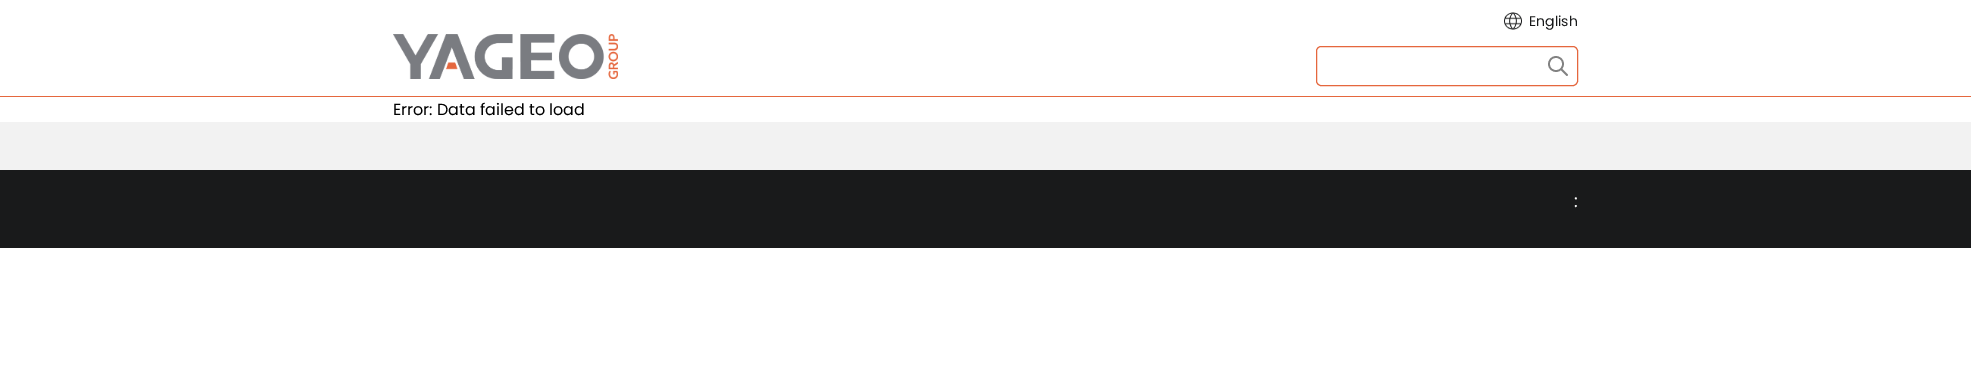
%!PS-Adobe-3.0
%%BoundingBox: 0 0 1971 370
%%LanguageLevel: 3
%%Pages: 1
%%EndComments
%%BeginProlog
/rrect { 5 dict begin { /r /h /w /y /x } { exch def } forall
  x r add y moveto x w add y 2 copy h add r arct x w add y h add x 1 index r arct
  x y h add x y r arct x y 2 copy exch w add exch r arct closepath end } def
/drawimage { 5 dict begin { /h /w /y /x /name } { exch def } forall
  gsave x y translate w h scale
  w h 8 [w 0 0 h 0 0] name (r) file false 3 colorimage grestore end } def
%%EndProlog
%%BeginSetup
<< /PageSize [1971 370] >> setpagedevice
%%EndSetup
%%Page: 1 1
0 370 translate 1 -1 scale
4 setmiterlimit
1 setgray
0 0 1971 370 rectfill
0.898 0.404 0.243 setrgbcolor
0 96 1971 1 rectfill
(images/1.raw) 1504 12 18 18 drawimage
1316.5 46.5 261 39 4.5 rrect stroke
(images/2.raw) 1548 56 20 20 drawimage
(images/3.raw) 393 34 225 45 drawimage
0.949 setgray
0 122 1971 48 rectfill
0.098 0.102 0.106 setrgbcolor
0 170 1971 78 rectfill
/Poppins-Regular [14 0 0 -14 0 0] selectfont
1529 26 moveto (English) show
/Poppins-Regular [16 0 0 -16 0 0] selectfont
0 setgray
393 115 moveto (Error: Data failed to load) show
/Poppins-Regular [18 0 0 -18 0 0] selectfont
1 setgray
1574 207 moveto (:) show
showpage
%%EOF
